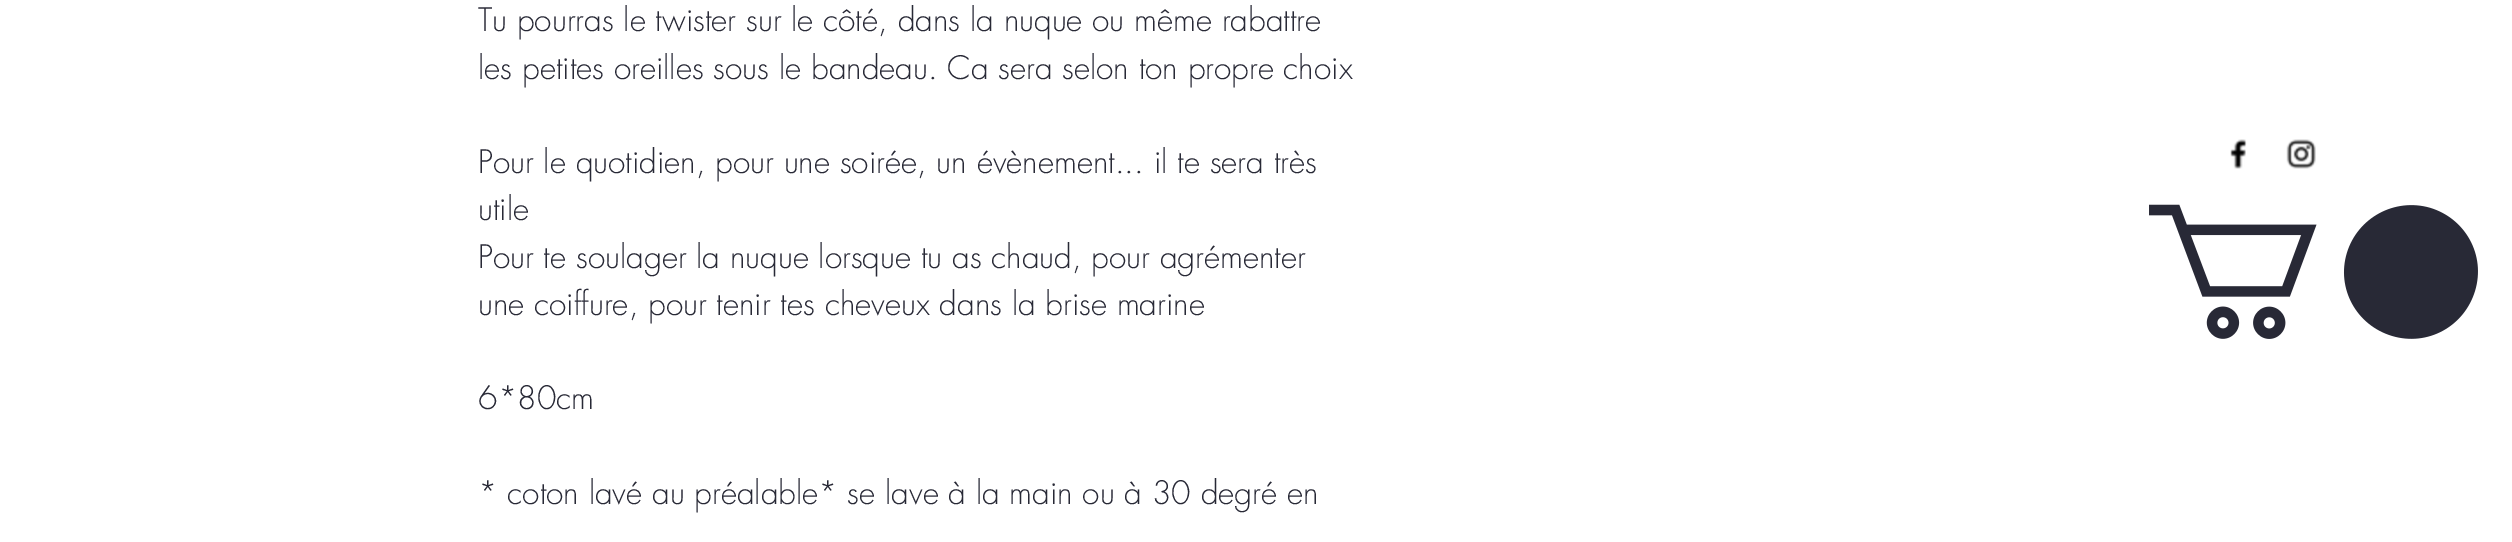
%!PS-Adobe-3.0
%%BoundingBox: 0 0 2512 542
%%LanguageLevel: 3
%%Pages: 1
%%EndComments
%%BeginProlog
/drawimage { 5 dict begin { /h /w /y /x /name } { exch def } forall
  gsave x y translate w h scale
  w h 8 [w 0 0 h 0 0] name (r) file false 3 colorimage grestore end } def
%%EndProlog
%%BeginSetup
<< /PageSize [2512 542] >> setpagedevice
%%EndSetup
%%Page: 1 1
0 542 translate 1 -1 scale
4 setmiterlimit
1 setgray
0 0 2512 542 rectfill
(images/1.raw) 2230 139 17 30 drawimage
(images/2.raw) 2286 139 30 30 drawimage
(images/3.raw) 2149 204 329 135 drawimage
/futura-Light [31.5 0 0 -31.5 0 0] selectfont
0.157 0.161 0.212 setrgbcolor
478 31 moveto (Tu pourras le twister sur le côté, dans la nuque ou même rabattre) show
478 79 moveto (les petites oreilles sous le bandeau. Ca sera selon ton propre choix) show
478 173 moveto (Pour le quotidien, pour une soirée, un évènement... il te sera très) show
478 220 moveto (utile) show
478 268 moveto (Pour te soulager la nuque lorsque tu as chaud, pour agrémenter) show
478 315 moveto (une coiffure, pour tenir tes cheveux dans la brise marine) show
478 409 moveto (6*80cm) show
478 504 moveto (* coton lavé au préalable* se lave à la main ou à 30 degré en) show
showpage
%%EOF
